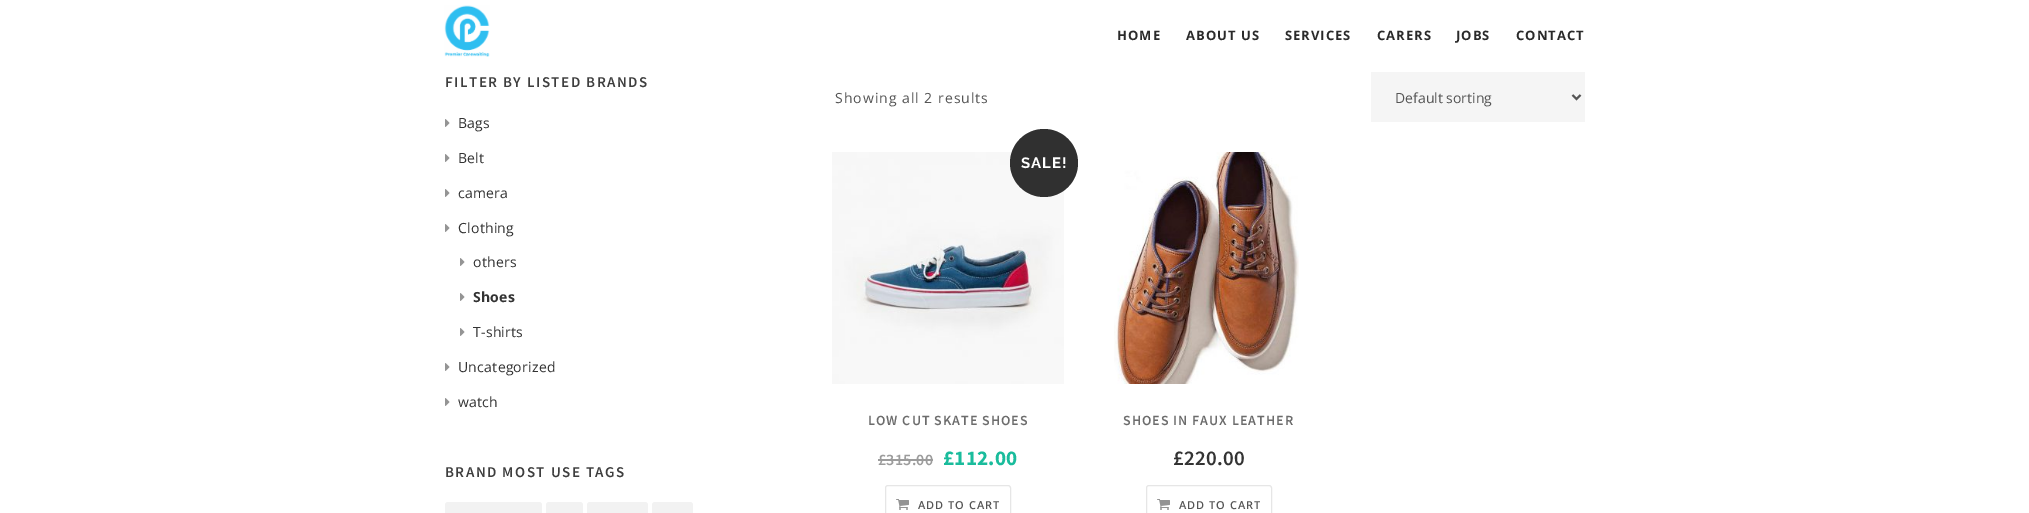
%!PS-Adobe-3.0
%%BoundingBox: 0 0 2029 513
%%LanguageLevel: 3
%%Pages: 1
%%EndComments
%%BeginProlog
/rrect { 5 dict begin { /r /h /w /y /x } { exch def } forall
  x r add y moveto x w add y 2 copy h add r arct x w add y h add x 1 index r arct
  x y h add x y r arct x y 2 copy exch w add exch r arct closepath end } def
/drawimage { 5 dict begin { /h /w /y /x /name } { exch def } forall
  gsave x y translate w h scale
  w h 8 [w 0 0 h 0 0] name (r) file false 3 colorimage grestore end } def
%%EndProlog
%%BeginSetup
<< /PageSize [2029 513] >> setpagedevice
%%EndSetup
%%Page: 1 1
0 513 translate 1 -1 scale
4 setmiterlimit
1 setgray
0 0 2029 513 rectfill
(images/1.raw) 444 5 46 52 drawimage
(images/2.raw) 445 119 5 8 drawimage
(images/2.raw) 445 154 5 8 drawimage
(images/2.raw) 445 189 5 8 drawimage
(images/2.raw) 445 224 5 8 drawimage
(images/2.raw) 460 258 5 8 drawimage
(images/2.raw) 460 293 5 8 drawimage
(images/2.raw) 460 328 5 8 drawimage
(images/2.raw) 445 363 5 8 drawimage
(images/2.raw) 445 398 5 8 drawimage
0.949 setgray
445 502 97 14 3 rrect fill
546 502 37 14 3 rrect fill
587 502 61 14 3 rrect fill
652 502 41 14 3 rrect fill
0.961 setgray
1371 72 214 50 rectfill
0.333 setgray
2 setlinewidth
newpath 1572.5 95 moveto 1576.5 99 lineto 1580.5 95 lineto stroke
(images/3.raw) 832 152 232 232 drawimage
0.188 setgray
newpath 1044 163 34 0 360 arc closepath fill
0.612 setgray
878 459 55 2 rectfill
0.902 setgray
1 setlinewidth
885.5 485.5 125 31 2.5 rrect stroke
(images/4.raw) 896 499 13 11 drawimage
(images/5.raw) 1114 152 185 232 drawimage
1146.5 485.5 125 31 2.5 rrect stroke
(images/4.raw) 1157 499 13 11 drawimage
/OpenSans-Bold [13 0 0 -13 0 0] selectfont
0.165 setgray
1117 40 moveto 1 0 (HOME) ashow
1186 40 moveto 1 0 (ABOUT US) ashow
1285 40 moveto 1 0 (SERVICES) ashow
1377 40 moveto 1 0 (CARERS) ashow
1456 40 moveto 1 0 (JOBS) ashow
1516 40 moveto 1 0 (CONTACT) ashow
/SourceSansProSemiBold-SemiBold [15 0 0 -15 0 0] selectfont
0.243 setgray
445 87 moveto 1.5 0 (FILTER BY LISTED BRANDS) ashow
/OpenSans-Regular [14 0 0 -14 0 0] selectfont
0.2 setgray
458 128 moveto 0.25 0 (Bags) ashow
458 163 moveto 0.25 0 (Belt) ashow
458 198 moveto 0.25 0 (camera) ashow
458 233 moveto 0.25 0 (Clothing) ashow
473 267 moveto 0.25 0 (others) ashow
/OpenSans-Bold [14 0 0 -14 0 0] selectfont
473 302 moveto 0.25 0 (Shoes) ashow
/OpenSans-Regular [14 0 0 -14 0 0] selectfont
473 337 moveto 0.25 0 (T-shirts) ashow
458 372 moveto 0.25 0 (Uncategorized) ashow
458 407 moveto 0.25 0 (watch) ashow
/SourceSansProSemiBold-SemiBold [15 0 0 -15 0 0] selectfont
0.243 setgray
445 477 moveto 1.5 0 (BRAND MOST USE TAGS) ashow
/OpenSans-Regular [14 0 0 -14 0 0] selectfont
0.333 setgray
835 103 moveto 1 0 (Showing all 2 results) ashow
1395 103 moveto (Default sorting) show
/Raleway-Bold [15 0 0 -15 0 0] selectfont
1 setgray
1021 168 moveto 1 0 (SALE!) ashow
/SourceSansProSemiBold-SemiBold [14 0 0 -14 0 0] selectfont
0.424 setgray
868 425 moveto 1 0 (LOW CUT SKATE SHOES) ashow
/SourceSansProSemiBold-SemiBold [16 0 0 -16 0 0] selectfont
0.612 setgray
878 465 moveto 0.25 0 (£315.00) ashow
/SourceSansPro-Bold [21 0 0 -21 0 0] selectfont
0.102 0.737 0.612 setrgbcolor
943 465 moveto 0.25 0 (£112.00) ashow
/OpenSans-SemiBold [11 0 0 -11 0 0] selectfont
0.333 setgray
918 509 moveto 1 0 (ADD TO CART) ashow
/SourceSansProSemiBold-SemiBold [14 0 0 -14 0 0] selectfont
0.424 setgray
1123 425 moveto 1 0 (SHOES IN FAUX LEATHER) ashow
/SourceSansProSemiBold-SemiBold [21 0 0 -21 0 0] selectfont
0.2 setgray
1173 465 moveto 0.25 0 (£220.00) ashow
/OpenSans-SemiBold [11 0 0 -11 0 0] selectfont
0.333 setgray
1179 509 moveto 1 0 (ADD TO CART) ashow
showpage
%%EOF
